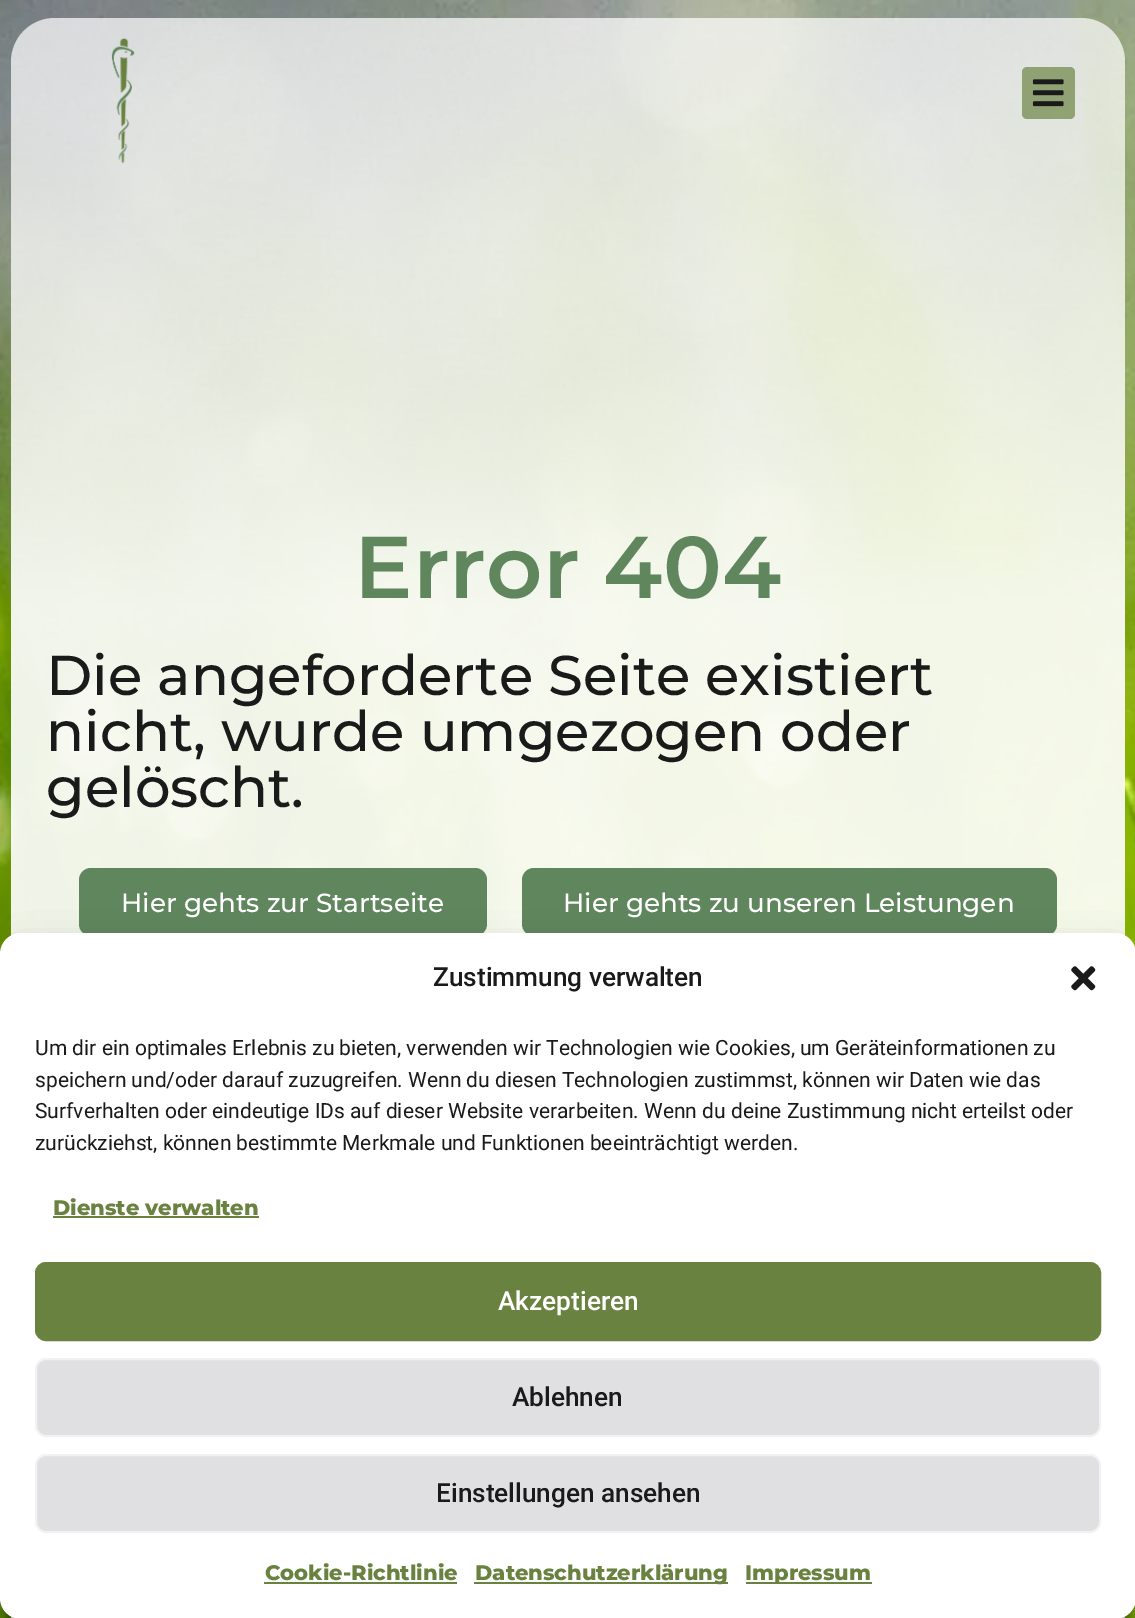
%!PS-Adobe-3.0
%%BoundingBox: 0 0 1135 1618
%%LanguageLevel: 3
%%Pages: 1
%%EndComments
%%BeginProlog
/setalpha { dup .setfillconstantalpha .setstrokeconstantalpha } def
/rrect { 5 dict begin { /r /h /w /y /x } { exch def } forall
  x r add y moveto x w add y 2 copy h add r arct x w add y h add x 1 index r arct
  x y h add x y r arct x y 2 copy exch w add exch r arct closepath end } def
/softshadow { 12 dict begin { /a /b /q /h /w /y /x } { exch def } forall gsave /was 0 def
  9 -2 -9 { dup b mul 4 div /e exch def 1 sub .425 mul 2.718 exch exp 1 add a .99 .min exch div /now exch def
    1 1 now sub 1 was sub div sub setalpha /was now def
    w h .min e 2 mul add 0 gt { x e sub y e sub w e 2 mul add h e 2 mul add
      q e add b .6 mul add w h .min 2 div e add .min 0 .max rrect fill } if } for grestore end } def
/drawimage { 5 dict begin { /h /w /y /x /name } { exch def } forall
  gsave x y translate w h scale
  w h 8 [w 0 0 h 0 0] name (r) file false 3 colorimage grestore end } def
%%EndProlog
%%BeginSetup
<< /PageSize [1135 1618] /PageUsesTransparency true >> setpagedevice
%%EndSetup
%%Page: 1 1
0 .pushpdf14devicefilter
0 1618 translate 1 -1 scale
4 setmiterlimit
1 setgray
0 0 1135 1618 rectfill
(images/1.raw) 0 0 1135 1618 drawimage
0.71 setalpha
newpath 55 18 moveto 1081 18 lineto 1105.5 18 1125 37.5 1125 62 curveto 1125 184 lineto 11 184 lineto 11 62 lineto 11 37.5 30.5 18 55 18 curveto closepath fill
1 setalpha
(images/2.raw) 111 38 24 126 drawimage
0.68 setalpha
0.416 0.51 0.251 setrgbcolor
1022 67 53 52 5 rrect fill
1 setalpha
(images/3.raw) 1032 79 32 28 drawimage
0.376 0.525 0.369 setrgbcolor
79 868 408 68 12 rrect fill
522 868 535 68 12 rrect fill
0.91 setalpha
1 setgray
11 1616 1114 2 rectfill
1 setalpha
0 setgray
0 943 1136 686 21 5 0.23 softshadow
0 950 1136 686 21 17.5 0.19 softshadow
1 setgray
0 933 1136 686 21 rrect fill
(images/4.raw) 1071 966 25 25 drawimage
0.416 0.51 0.251 setrgbcolor
53 1216 206 2 rectfill
36 1263 1064 77 10 rrect gsave fill grestore
2 setlinewidth
stroke
0.878 0.878 0.886 setrgbcolor
36 1359 1064 77 10 rrect gsave fill grestore
0.949 setgray
stroke
0.878 0.878 0.886 setrgbcolor
36 1455 1064 77 10 rrect gsave fill grestore
0.949 setgray
stroke
0.416 0.51 0.251 setrgbcolor
264 1582 193 2 rectfill
474 1582 254 2 rectfill
746 1582 126 2 rectfill
/Montserrat-SemiBold [87.5 0 0 -87.5 0 0] selectfont
0.376 0.525 0.369 setrgbcolor
354 598 moveto (Error 404) show
/Montserrat-Medium [56 0 0 -56 0 0] selectfont
0.102 setgray
46 695 moveto (Die angeforderte Seite existiert) show
46 751 moveto (nicht, wurde umgezogen oder) show
46 807 moveto (gelöscht.) show
/Montserrat-Medium [26.25 0 0 -26.25 0 0] selectfont
1 setgray
121 912 moveto (Hier gehts zur Startseite) show
563 912 moveto (Hier gehts zu unseren Leistungen) show
/Roboto-Medium [26.25 0 0 -26.25 0 0] selectfont
0.102 setgray
433 986 moveto (Zustimmung verwalten) show
/Roboto-Regular [21 0 0 -21 0 0] selectfont
35 1055 moveto (Um dir ein optimales Erlebnis zu bieten, verwenden wir Technologien wie Cookies, um Geräteinformationen zu) show
35 1087 moveto (speichern und/oder darauf zuzugreifen. Wenn du diesen Technologien zustimmst, können wir Daten wie das) show
35 1118 moveto (Surfverhalten oder eindeutige IDs auf dieser Website verarbeiten. Wenn du deine Zustimmung nicht erteilst oder) show
35 1150 moveto (zurückziehst, können bestimmte Merkmale und Funktionen beeinträchtigt werden.) show
/Montserrat-ExtraBold [21 0 0 -21 0 0] selectfont
0.416 0.51 0.251 setrgbcolor
53 1215 moveto (Dienste verwalten) show
/Roboto-Medium [26.25 0 0 -26.25 0 0] selectfont
1 setgray
498 1310 moveto (Akzeptieren) show
0.102 setgray
512 1406 moveto (Ablehnen) show
436 1502 moveto (Einstellungen ansehen) show
/Montserrat-ExtraBold [21 0 0 -21 0 0] selectfont
0.416 0.51 0.251 setrgbcolor
265 1580 moveto (Cookie-Richtlinie) show
475 1580 moveto (Datenschutzerklärung) show
745 1580 moveto (Impressum) show
.poppdf14devicefilter showpage
%%EOF
